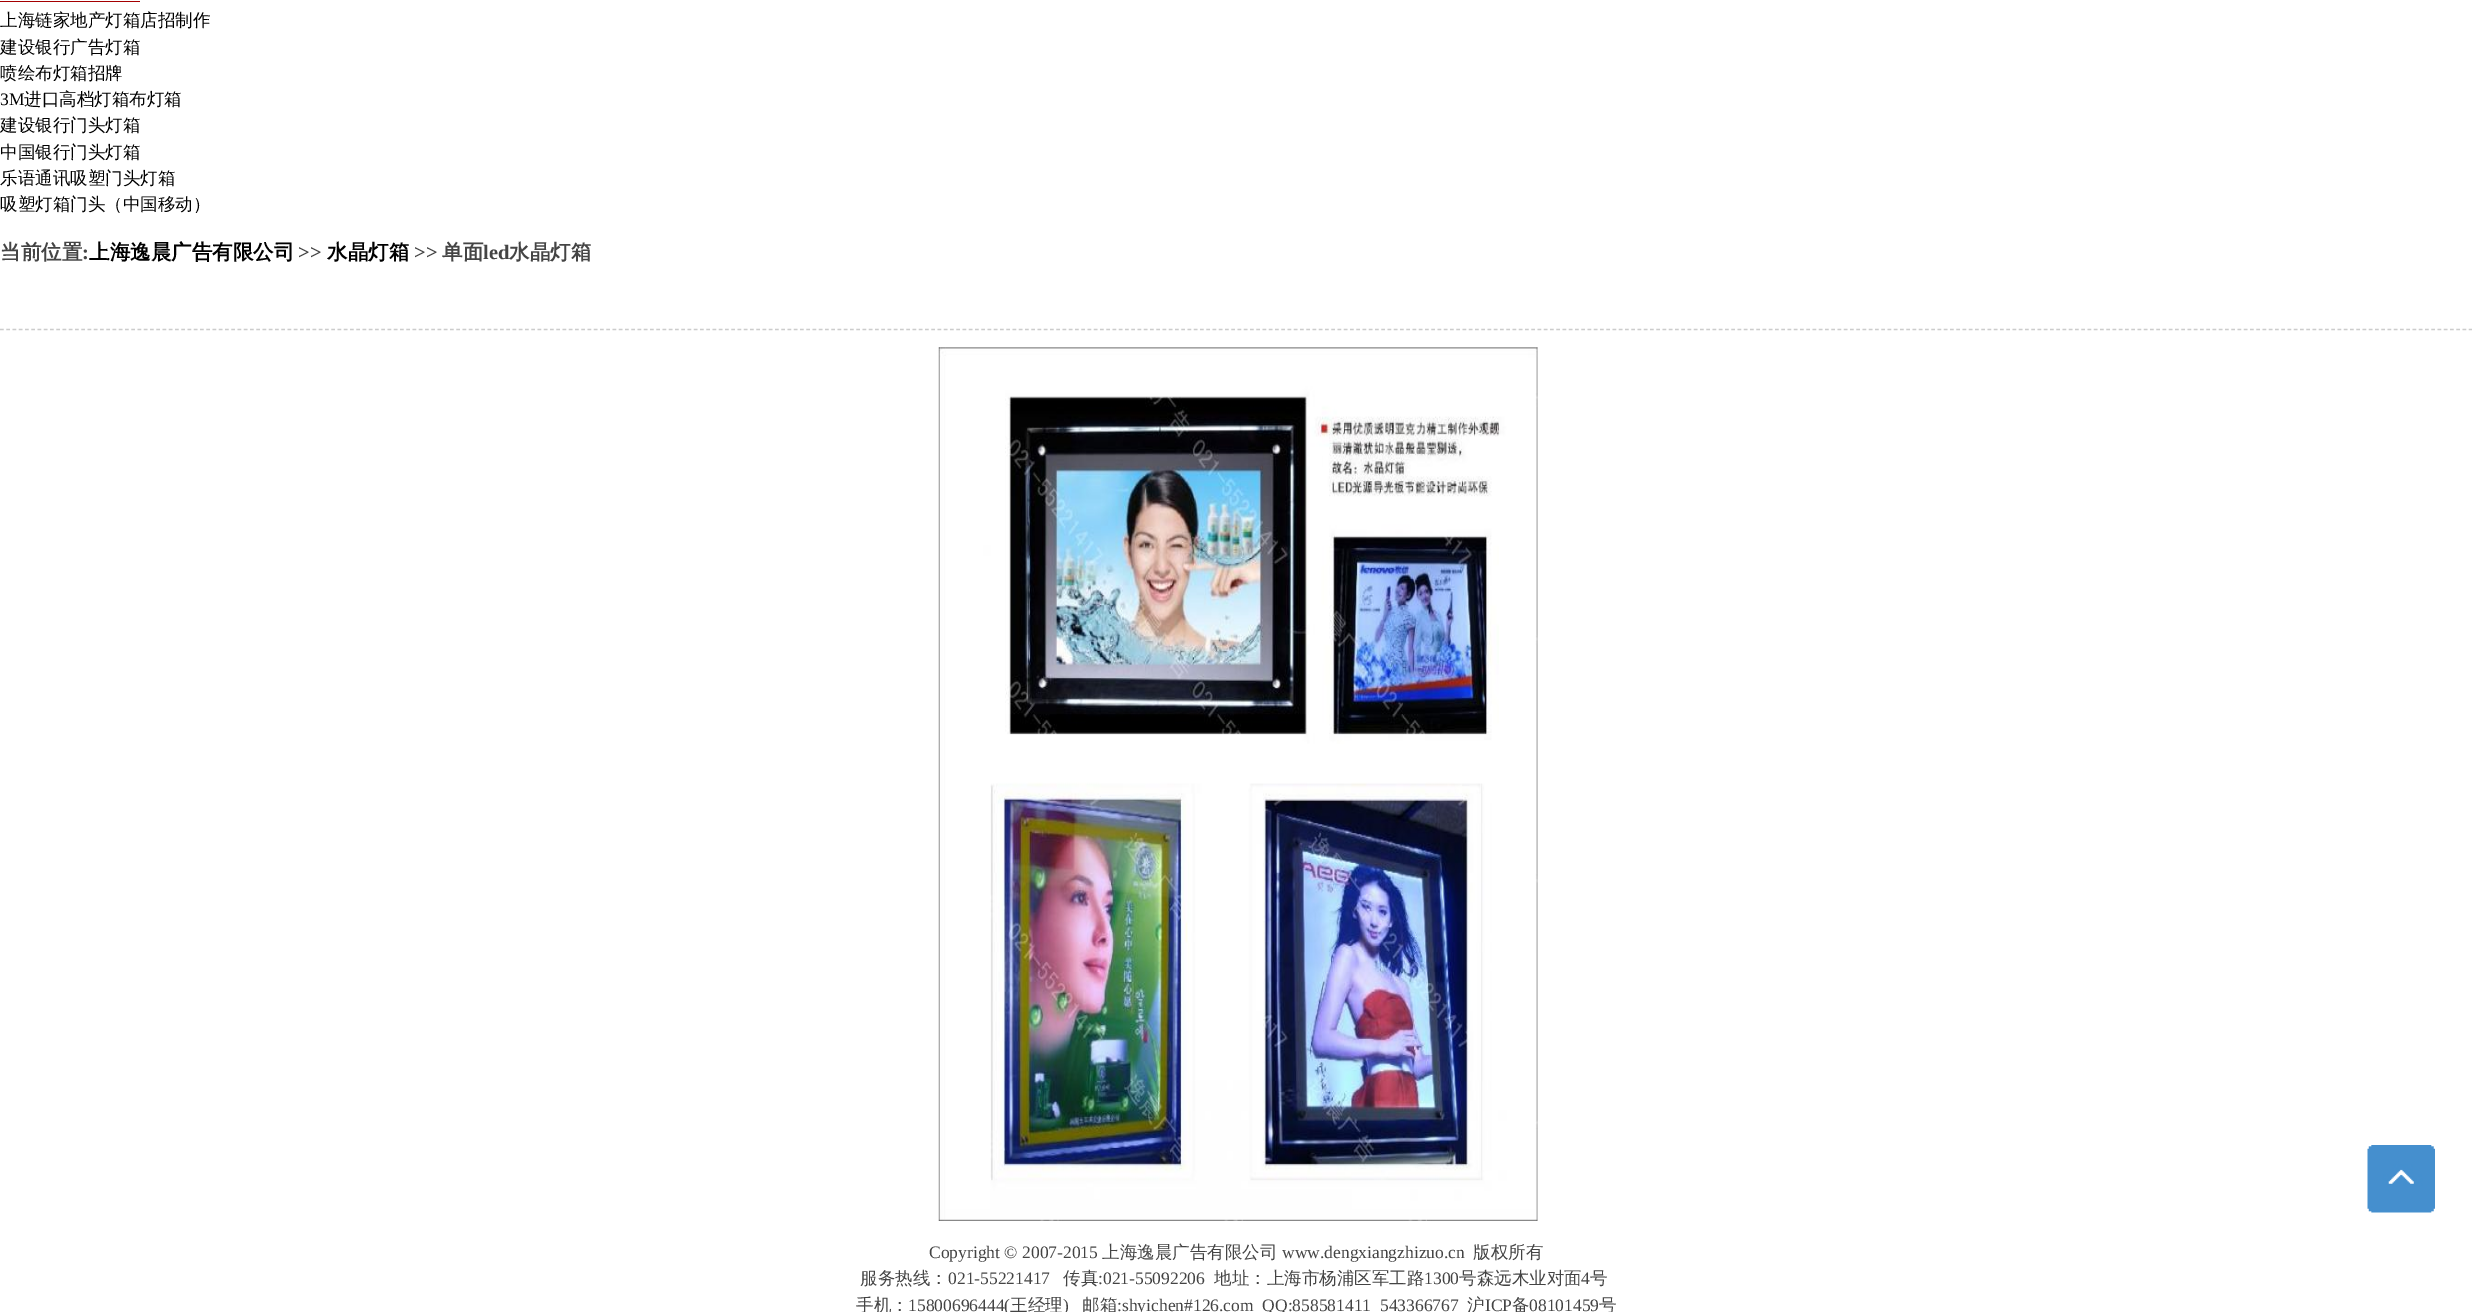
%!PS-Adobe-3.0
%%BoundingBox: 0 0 2472 1312
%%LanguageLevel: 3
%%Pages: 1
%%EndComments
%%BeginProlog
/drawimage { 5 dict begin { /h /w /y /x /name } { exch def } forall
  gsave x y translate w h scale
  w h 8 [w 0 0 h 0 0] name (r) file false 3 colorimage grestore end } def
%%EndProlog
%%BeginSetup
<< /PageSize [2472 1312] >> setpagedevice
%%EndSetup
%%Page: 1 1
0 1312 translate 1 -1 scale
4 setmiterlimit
1 setgray
0 0 2472 1312 rectfill
0.647 0 0.004 setrgbcolor
0 1 140 1 rectfill
0.8 setgray
1.2 setlinewidth
[3.75 2.5] 0 setdash
newpath 0 329.5 moveto 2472.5 329.5 lineto stroke
(images/1.raw) 938 347 600 874 drawimage
(images/2.raw) 2367 1145 68 68 drawimage
/WenQuanYiZenHei-Medium [17.5 0 0 -17.5 0 0] selectfont
0 setgray
0 26 moveto (上海链家地产灯箱店招制作) show
0 53 moveto (建设银行广告灯箱) show
0 79 moveto (喷绘布灯箱招牌) show
/LiberationSerif-Regular [17.5 0 0 -17.5 0 0] selectfont
0 105 moveto (3M) show
/WenQuanYiZenHei-Medium [17.5 0 0 -17.5 0 0] selectfont
24 105 moveto (进口高档灯箱布灯箱) show
0 131 moveto (建设银行门头灯箱) show
0 158 moveto (中国银行门头灯箱) show
0 184 moveto (乐语通讯吸塑门头灯箱) show
0 210 moveto (吸塑灯箱门头（中国移动）) show
/WenQuanYiZenHei-Bold [20.5 0 0 -20.5 0 0] selectfont
0.267 setgray
0 259 moveto (当前位置) show
/LiberationSerif-Bold [20.5 0 0 -20.5 0 0] selectfont
82 259 moveto (:) show
/WenQuanYiZenHei-Bold [20.5 0 0 -20.5 0 0] selectfont
0 setgray
89 259 moveto (上海逸晨广告有限公司) show
/LiberationSerif-Bold [20.5 0 0 -20.5 0 0] selectfont
0.267 setgray
298 259 moveto (>>) show
/WenQuanYiZenHei-Bold [20.5 0 0 -20.5 0 0] selectfont
0 setgray
327 259 moveto (水晶灯箱) show
/LiberationSerif-Bold [20.5 0 0 -20.5 0 0] selectfont
0.267 setgray
414 259 moveto (>>) show
/WenQuanYiZenHei-Bold [20.5 0 0 -20.5 0 0] selectfont
442 259 moveto (单面) show
/LiberationSerif-Bold [20.5 0 0 -20.5 0 0] selectfont
483 259 moveto (led) show
/WenQuanYiZenHei-Bold [20.5 0 0 -20.5 0 0] selectfont
509 259 moveto (水晶灯箱) show
/LiberationSerif-Regular [17.5 0 0 -17.5 0 0] selectfont
929 1258 moveto (Copyright © 2007-2015) show
/WenQuanYiZenHei-Medium [17.5 0 0 -17.5 0 0] selectfont
1102 1258 moveto (上海逸晨广告有限公司) show
/LiberationSerif-Regular [17.5 0 0 -17.5 0 0] selectfont
1282 1258 moveto (www.dengxiangzhizuo.cn) show
/WenQuanYiZenHei-Medium [17.5 0 0 -17.5 0 0] selectfont
1473 1258 moveto (版权所有) show
860 1284 moveto (服务热线：) show
/LiberationSerif-Regular [17.5 0 0 -17.5 0 0] selectfont
948 1284 moveto (021-55221417) show
/WenQuanYiZenHei-Medium [17.5 0 0 -17.5 0 0] selectfont
1063 1284 moveto (传真) show
/LiberationSerif-Regular [17.5 0 0 -17.5 0 0] selectfont
1098 1284 moveto (:021-55092206) show
/WenQuanYiZenHei-Medium [17.5 0 0 -17.5 0 0] selectfont
1214 1284 moveto (地址：上海市杨浦区军工路) show
/LiberationSerif-Regular [17.5 0 0 -17.5 0 0] selectfont
1424 1284 moveto (1300) show
/WenQuanYiZenHei-Medium [17.5 0 0 -17.5 0 0] selectfont
1459 1284 moveto (号森远木业对面) show
/LiberationSerif-Regular [17.5 0 0 -17.5 0 0] selectfont
1581 1284 moveto (4) show
/WenQuanYiZenHei-Medium [17.5 0 0 -17.5 0 0] selectfont
1590 1284 moveto (号) show
856 1311 moveto (手机：) show
/LiberationSerif-Regular [17.5 0 0 -17.5 0 0] selectfont
908 1311 moveto (15800696444\() show
/WenQuanYiZenHei-Medium [17.5 0 0 -17.5 0 0] selectfont
1010 1311 moveto (王经理) show
/LiberationSerif-Regular [17.5 0 0 -17.5 0 0] selectfont
1063 1311 moveto (\)) show
/WenQuanYiZenHei-Medium [17.5 0 0 -17.5 0 0] selectfont
1082 1311 moveto (邮箱) show
/LiberationSerif-Regular [17.5 0 0 -17.5 0 0] selectfont
1117 1311 moveto (:shyichen#126.com  QQ:858581411  543366767) show
/WenQuanYiZenHei-Medium [17.5 0 0 -17.5 0 0] selectfont
1467 1311 moveto (沪) show
/LiberationSerif-Regular [17.5 0 0 -17.5 0 0] selectfont
1485 1311 moveto (ICP) show
/WenQuanYiZenHei-Medium [17.5 0 0 -17.5 0 0] selectfont
1512 1311 moveto (备) show
/LiberationSerif-Regular [17.5 0 0 -17.5 0 0] selectfont
1529 1311 moveto (08101459) show
/WenQuanYiZenHei-Medium [17.5 0 0 -17.5 0 0] selectfont
1599 1311 moveto (号) show
showpage
%%EOF
